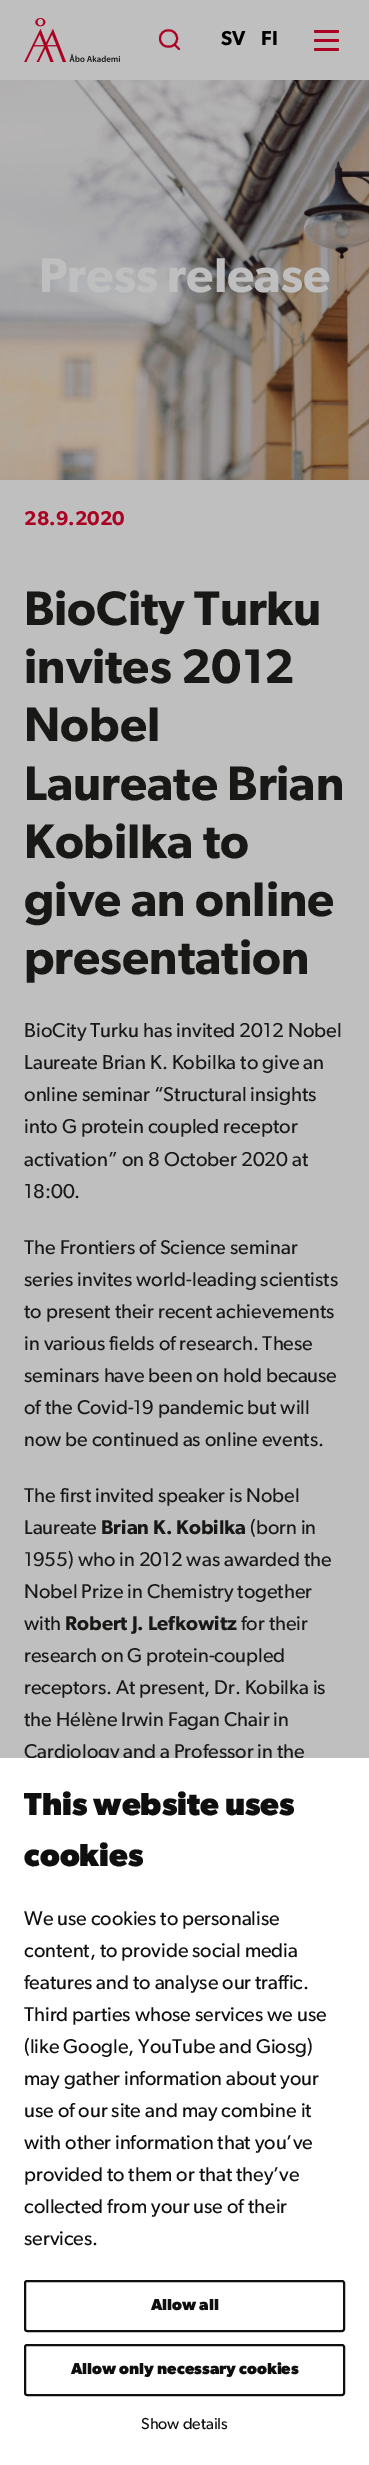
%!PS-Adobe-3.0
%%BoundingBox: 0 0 369 2465
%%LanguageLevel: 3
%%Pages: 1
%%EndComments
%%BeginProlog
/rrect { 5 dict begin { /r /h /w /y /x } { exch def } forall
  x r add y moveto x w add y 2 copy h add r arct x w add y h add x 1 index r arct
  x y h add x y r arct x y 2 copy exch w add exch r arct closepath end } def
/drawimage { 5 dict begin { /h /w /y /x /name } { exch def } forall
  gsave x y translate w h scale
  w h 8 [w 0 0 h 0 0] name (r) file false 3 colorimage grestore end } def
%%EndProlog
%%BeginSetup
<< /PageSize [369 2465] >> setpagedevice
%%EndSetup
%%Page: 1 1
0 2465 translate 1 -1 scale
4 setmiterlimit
0.749 setgray
0 0 369 2465 rectfill
(images/1.raw) 24 18 96 44 drawimage
0.671 0.008 0.137 setrgbcolor
2 setlinewidth
1 setlinecap
1 setlinejoin
newpath 179 49 moveto 174.5 44.5 lineto closepath 177 38.5 moveto 177 49.5 160 49.5 160 38.5 curveto 160 27.5 177 27.5 177 38.5 curveto closepath stroke
314 30 25 3 1.5 rrect fill
314 39 25 3 1.5 rrect fill
314 48 25 3 1.5 rrect fill
(images/2.raw) 0 80 369 400 drawimage
/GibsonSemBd-SemiBold [20.2 0 0 -20.2 0 0] selectfont
0 setgray
221 45 moveto (SV) show
261 45 moveto (FI) show
/GibsonSemBd-SemiBold [49 0 0 -49 0 0] selectfont
0.749 setgray
39 292 moveto (Press release) show
/GibsonSemBd-SemiBold [20 0 0 -20 0 0] selectfont
0.671 0.008 0.137 setrgbcolor
24 525 moveto (28.9.2020) show
/GibsonSemBd-SemiBold [48.5 0 0 -48.5 0 0] selectfont
0.094 0.094 0.09 setrgbcolor
24 625 moveto (BioCity Turku) show
24 683 moveto (invites 2012) show
24 741 moveto (Nobel) show
24 800 moveto (Laureate Brian) show
24 858 moveto (Kobilka to) show
24 916 moveto (give an online) show
24 974 moveto (presentation) show
/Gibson-Regular [20.2 0 0 -20.2 0 0] selectfont
24 1037 moveto (BioCity Turku has invited 2012 Nobel) show
24 1069 moveto (Laureate Brian K. Kobilka to give an) show
24 1101 moveto (online seminar “Structural insights) show
24 1133 moveto (into G protein coupled receptor) show
24 1166 moveto (activation” on 8 October 2020 at) show
24 1198 moveto (18:00.) show
/Gibson-Regular [20 0 0 -20 0 0] selectfont
24 1254 moveto (The Frontiers of Science seminar) show
24 1286 moveto (series invites world-leading scientists) show
24 1318 moveto (to present their recent achievements) show
24 1350 moveto (in various fields of research. These) show
24 1382 moveto (seminars have been on hold because) show
24 1414 moveto (of the Covid-19 pandemic but will) show
24 1446 moveto (now be continued as online events.) show
24 1502 moveto (The first invited speaker is Nobel) show
24 1534 moveto (Laureate) show
/GibsonSemBd-SemiBold [20 0 0 -20 0 0] selectfont
101 1534 moveto (Brian K. Kobilka) show
/Gibson-Regular [20 0 0 -20 0 0] selectfont
250 1534 moveto (\(born in) show
24 1566 moveto (1955\) who in 2012 was awarded the) show
24 1598 moveto (Nobel Prize in Chemistry together) show
24 1630 moveto (with) show
/GibsonSemBd-SemiBold [20 0 0 -20 0 0] selectfont
65 1630 moveto (Robert J. Lefkowitz) show
/Gibson-Regular [20 0 0 -20 0 0] selectfont
241 1630 moveto (for their) show
24 1662 moveto (research on G protein-coupled) show
24 1694 moveto (receptors. At present, Dr. Kobilka is) show
24 1726 moveto (the Hélène Irwin Fagan Chair in) show
24 1758 moveto (Cardiology and a Professor in the) show
1 setgray
0 1758 369 707 rectfill
/Gibson-Bold [32 0 0 -32 0 0] selectfont
0.059 setgray
24 1815 moveto (This website uses) show
24 1866 moveto (cookies) show
/Gibson-Regular [20 0 0 -20 0 0] selectfont
24 1925 moveto (We use cookies to personalise) show
24 1957 moveto (content, to provide social media) show
24 1989 moveto (features and to analyse our traffic.) show
24 2021 moveto (Third parties whose services we use) show
24 2053 moveto (\(like Google, YouTube and Giosg\)) show
24 2085 moveto (may gather information about your) show
24 2117 moveto (use of our site and may combine it) show
24 2149 moveto (with other information that you’ve) show
24 2181 moveto (provided to them or that they’ve) show
24 2213 moveto (collected from your use of their) show
24 2245 moveto (services.) show
0 setlinecap
0 setlinejoin
25 2281 319 50 2 rrect stroke
/Gibson-Bold [16 0 0 -16 0 0] selectfont
151 2310 moveto (Allow all) show
25 2345 319 50 2 rrect stroke
71 2374 moveto (Allow only necessary cookies) show
/Gibson-Regular [16 0 0 -16 0 0] selectfont
141 2429 moveto (Show details) show
showpage
%%EOF
